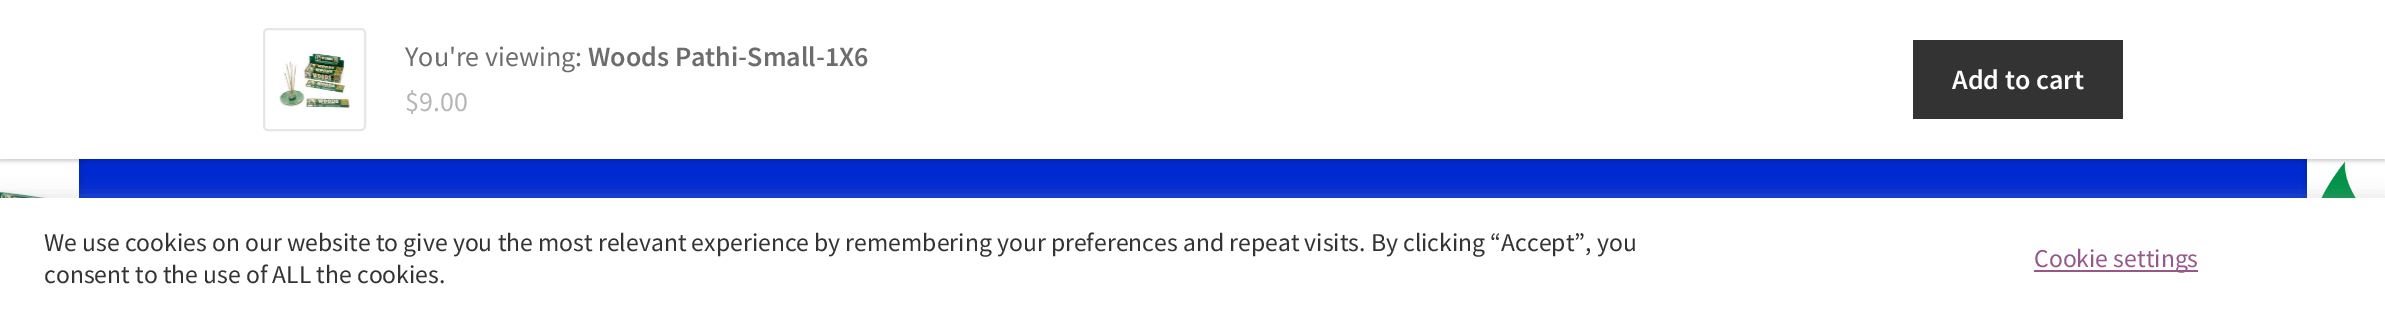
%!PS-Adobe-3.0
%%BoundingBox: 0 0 2385 317
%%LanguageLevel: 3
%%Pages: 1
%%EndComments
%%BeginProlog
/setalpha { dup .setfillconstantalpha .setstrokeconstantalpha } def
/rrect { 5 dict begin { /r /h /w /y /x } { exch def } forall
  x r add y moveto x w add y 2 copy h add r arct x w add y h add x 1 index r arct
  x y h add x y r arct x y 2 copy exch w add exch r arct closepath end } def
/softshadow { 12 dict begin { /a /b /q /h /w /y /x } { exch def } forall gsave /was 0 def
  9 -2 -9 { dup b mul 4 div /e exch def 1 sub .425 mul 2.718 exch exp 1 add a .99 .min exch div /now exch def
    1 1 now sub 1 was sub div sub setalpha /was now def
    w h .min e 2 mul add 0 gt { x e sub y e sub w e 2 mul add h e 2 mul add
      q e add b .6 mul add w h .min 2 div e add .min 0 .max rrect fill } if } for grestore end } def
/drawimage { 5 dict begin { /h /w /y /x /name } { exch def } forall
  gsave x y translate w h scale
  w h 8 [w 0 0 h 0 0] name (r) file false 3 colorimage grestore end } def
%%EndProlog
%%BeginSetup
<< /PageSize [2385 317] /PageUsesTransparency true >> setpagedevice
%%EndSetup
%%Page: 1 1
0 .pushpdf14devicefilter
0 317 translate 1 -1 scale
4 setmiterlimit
0 0.161 0.82 setrgbcolor
0 0 2385 317 rectfill
0 setgray
-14 159 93 158 0 4.5 0.2 softshadow
1 setgray
0 159 79 39 rectfill
0 setgray
2307 159 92 158 0 4.5 0.2 softshadow
1 setgray
2307 159 78 39 rectfill
(images/3.raw) 2321 161 35 37 drawimage
0 setgray
0 2 2385 159 0 2 0.2 softshadow
1 setgray
0 0 2385 159 rectfill
0.902 setgray
2 setlinewidth
264 29 101 101 4 rrect stroke
(images/1.raw) 279 52 71 58 drawimage
0.2 setgray
1913 40 210 79 rectfill
(images/2.raw) 0 190 64 8 drawimage
0.675 0.671 0.671 setrgbcolor
0 196 2385 121 0 9 0.3 softshadow
1 setgray
0 198 2385 119 rectfill
0.588 0.345 0.541 setrgbcolor
2034 270 164 2 rectfill
/SourceSansPro-Regular [28 0 0 -28 0 0] selectfont
0.427 setgray
405 66 moveto (You're viewing:) show
/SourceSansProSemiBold-SemiBold [28 0 0 -28 0 0] selectfont
588 66 moveto (Woods Pathi-Small-1X6) show
/SourceSansPro-Regular [28 0 0 -28 0 0] selectfont
0.714 setgray
405 111 moveto ($9.00) show
/SourceSansProSemiBold-SemiBold [28 0 0 -28 0 0] selectfont
1 setgray
1952 89 moveto (Add to cart) show
/SourceSansPro-Regular [25.67 0 0 -25.67 0 0] selectfont
0.2 setgray
44 251 moveto (We use cookies on our website to give you the most relevant experience by remembering your preferences and repeat visits. By clicking “Accept”, you) show
44 283 moveto (consent to the use of ALL the cookies.) show
0.588 0.345 0.541 setrgbcolor
2034 267 moveto (Cookie settings) show
.poppdf14devicefilter showpage
%%EOF
